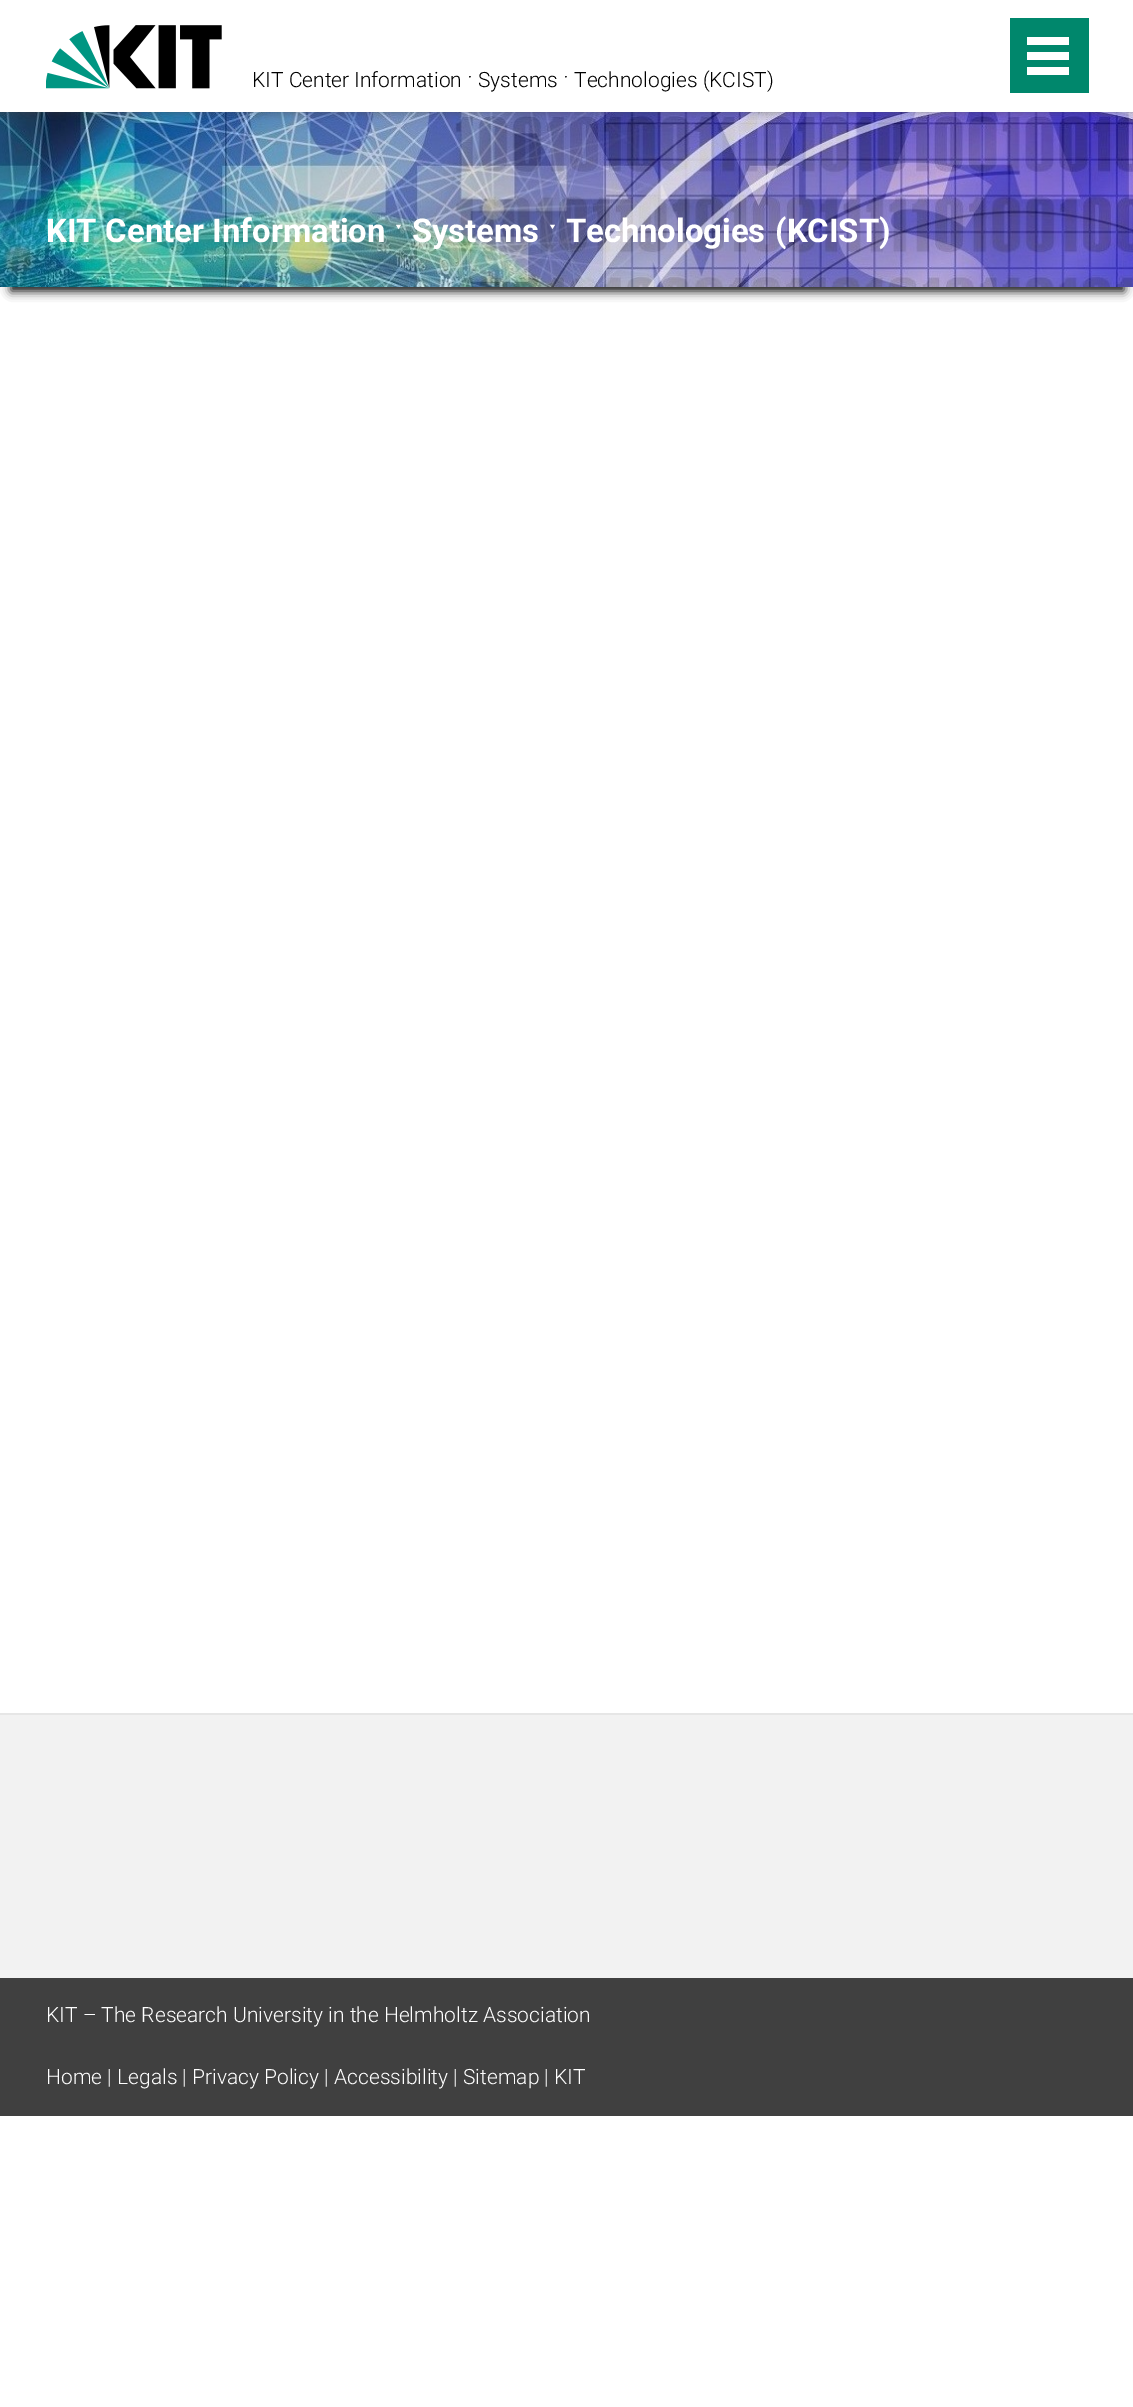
%!PS-Adobe-3.0
%%BoundingBox: 0 0 1133 2407
%%LanguageLevel: 3
%%Pages: 1
%%EndComments
%%BeginProlog
/setalpha { dup .setfillconstantalpha .setstrokeconstantalpha } def
/rrect { 5 dict begin { /r /h /w /y /x } { exch def } forall
  x r add y moveto x w add y 2 copy h add r arct x w add y h add x 1 index r arct
  x y h add x y r arct x y 2 copy exch w add exch r arct closepath end } def
/softshadow { 12 dict begin { /a /b /q /h /w /y /x } { exch def } forall gsave /was 0 def
  9 -2 -9 { dup b mul 4 div /e exch def 1 sub .425 mul 2.718 exch exp 1 add a .99 .min exch div /now exch def
    1 1 now sub 1 was sub div sub setalpha /was now def
    w h .min e 2 mul add 0 gt { x e sub y e sub w e 2 mul add h e 2 mul add
      q e add b .6 mul add w h .min 2 div e add .min 0 .max rrect fill } if } for grestore end } def
/drawimage { 5 dict begin { /h /w /y /x /name } { exch def } forall
  gsave x y translate w h scale
  w h 8 [w 0 0 h 0 0] name (r) file false 3 colorimage grestore end } def
%%EndProlog
%%BeginSetup
<< /PageSize [1133 2407] /PageUsesTransparency true >> setpagedevice
%%EndSetup
%%Page: 1 1
0 .pushpdf14devicefilter
0 2407 translate 1 -1 scale
4 setmiterlimit
1 setgray
0 0 1133 2407 rectfill
0 setgray
11 137 1113 154 0 5 1 softshadow
(images/2.raw) 0 112 1133 175 drawimage
gsave
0 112 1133 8 rectclip
0.251 setgray
0 0 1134 112 0 4.5 0.5 softshadow
grestore
(images/1.raw) 46 25 176 64 drawimage
0 0.529 0.424 setrgbcolor
1010 18 79 75 rectfill
1 setgray
1027 67 42 8 rectfill
1027 52 42 8 rectfill
1027 37 42 8 rectfill
0.949 setgray
0 1715 1133 263 rectfill
0.902 setgray
0 1713 1133 2 rectfill
0.251 setgray
0 1978 1133 138 rectfill
/Roboto-Light [21 0 0 -21 0 0] selectfont
0 setgray
252 87 moveto (KIT Center Information) show
/LiberationSans-Regular [21 0 0 -21 0 0] selectfont
467 87 moveto (ˑ) show
/Roboto-Light [21 0 0 -21 0 0] selectfont
478 87 moveto (Systems) show
/LiberationSans-Regular [21 0 0 -21 0 0] selectfont
563 87 moveto (ˑ) show
/Roboto-Light [21 0 0 -21 0 0] selectfont
574 87 moveto (Technologies \(KCIST\)) show
/Roboto-Bold [32.8 0 0 -32.8 0 0] selectfont
1 setgray
46 242 moveto 0.5 0 32 (KIT Center Information ˑ Systems ˑ Technologies) widthshow
775 242 moveto (\(KCIST\)) show
/Roboto-Light [21 0 0 -21 0 0] selectfont
46 2022 moveto (KIT – The Research University in the Helmholtz Association) show
46 2084 moveto (Home | Legals | Privacy Policy | Accessibility | Sitemap | KIT) show
.poppdf14devicefilter showpage
%%EOF
